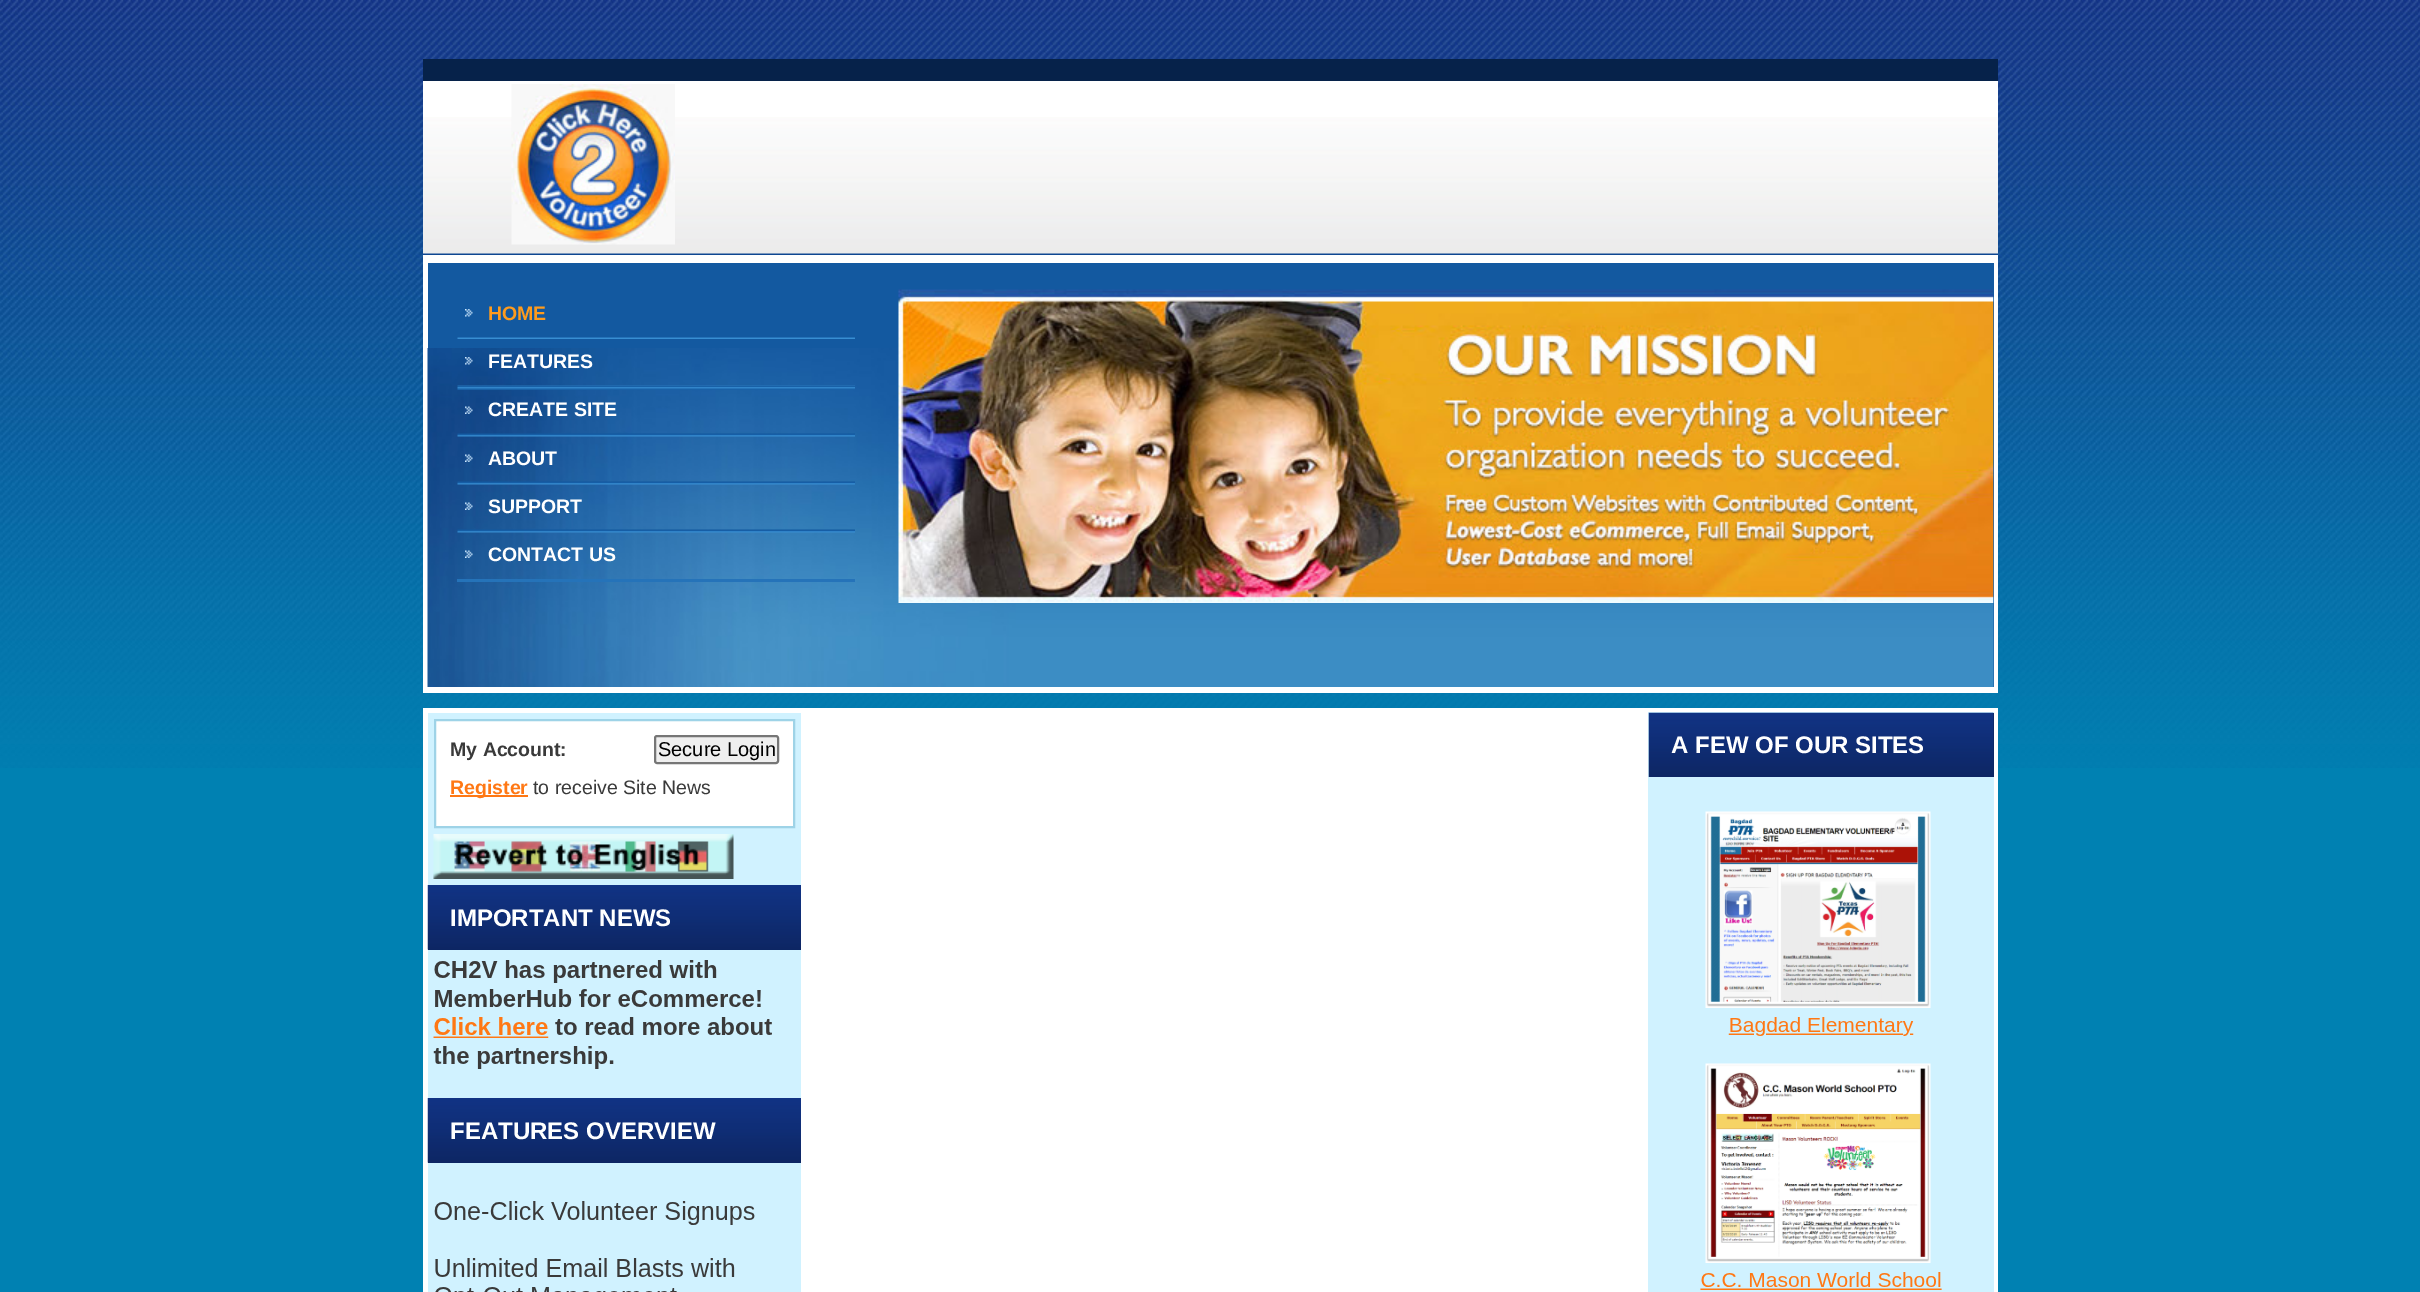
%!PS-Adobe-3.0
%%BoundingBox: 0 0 2420 1292
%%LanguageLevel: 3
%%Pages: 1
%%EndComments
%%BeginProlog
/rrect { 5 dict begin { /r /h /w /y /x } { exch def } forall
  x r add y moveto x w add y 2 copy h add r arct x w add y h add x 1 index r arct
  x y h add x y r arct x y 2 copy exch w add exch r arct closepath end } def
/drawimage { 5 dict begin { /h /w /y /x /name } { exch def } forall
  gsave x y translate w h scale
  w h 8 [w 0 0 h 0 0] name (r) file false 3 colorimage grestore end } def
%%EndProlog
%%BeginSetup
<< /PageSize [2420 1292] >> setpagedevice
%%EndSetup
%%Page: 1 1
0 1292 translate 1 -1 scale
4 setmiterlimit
0 0.506 0.698 setrgbcolor
0 0 2420 1292 rectfill
(images/1.raw) 0 0 2420 768 drawimage
0.024 0.133 0.29 setrgbcolor
423 59 1575 22 rectfill
1 setgray
423 81 1575 612 rectfill
(images/2.raw) 423 117 1575 138 drawimage
(images/3.raw) 511 84 164 161 drawimage
0.075 0.349 0.627 setrgbcolor
428 263 1566 424 rectfill
(images/4.raw) 427 348 1567 339 drawimage
(images/5.raw) 898 289 1096 314 drawimage
(images/6.raw) 465 309 8 8 drawimage
(images/7.raw) 457 337 398 2 drawimage
(images/8.raw) 465 357 8 8 drawimage
(images/9.raw) 457 385 398 5 drawimage
(images/10.raw) 465 406 8 8 drawimage
(images/11.raw) 457 433 398 4 drawimage
(images/12.raw) 465 454 8 8 drawimage
(images/13.raw) 457 481 398 4 drawimage
(images/14.raw) 465 502 8 8 drawimage
(images/15.raw) 457 529 398 4 drawimage
(images/16.raw) 465 550 8 8 drawimage
0.145 0.451 0.725 setrgbcolor
457 579 398 3 rectfill
1 setgray
423 708 1575 584 rectfill
0.816 0.949 1 setrgbcolor
1648 712 346 580 rectfill
428 713 373 579 rectfill
1 setgray
newpath 435 720 moveto 794 720 lineto 794 827 lineto 435 827 lineto closepath gsave fill grestore
0.62 0.827 0.906 setrgbcolor
2 setlinewidth
stroke
0.937 setgray
655 736 123 27 2 rrect gsave fill grestore
0.463 setgray
stroke
1 0.471 0.078 setrgbcolor
450 795 78 2 rectfill
(images/17.raw) 433 834 301 45 drawimage
0.051 0.149 0.384 setrgbcolor
428 949 373 1 rectfill
(images/18.raw) 427 885 374 65 drawimage
(images/19.raw) 433 960 339 109 drawimage
428 1162 373 1 rectfill
(images/18.raw) 427 1098 374 65 drawimage
(images/20.raw) 434 1201 321 91 drawimage
1993 713 1 64 rectfill
(images/21.raw) 1648 712 346 65 drawimage
(images/22.raw) 1700 811 242 479 drawimage
/LiberationSans-Bold [19.5 0 0 -19.5 0 0] selectfont
0.996 0.608 0.114 setrgbcolor
488 320 moveto (HOME) show
1 setgray
488 368 moveto (FEATURES) show
488 416 moveto (CREATE SITE) show
488 465 moveto (ABOUT) show
488 513 moveto (SUPPORT) show
488 561 moveto (CONTACT US) show
0.227 setgray
450 756 moveto (My Account:) show
/LiberationSans-Regular [20 0 0 -20 0 0] selectfont
0 setgray
658 756 moveto (Secure Login) show
/LiberationSans-Bold [19.5 0 0 -19.5 0 0] selectfont
1 0.471 0.078 setrgbcolor
450 794 moveto (Register) show
/LiberationSans-Regular [19.5 0 0 -19.5 0 0] selectfont
0.227 setgray
533 794 moveto (to receive Site News) show
/LiberationSans-Bold [24 0 0 -24 0 0] selectfont
1 setgray
450 926 moveto (IMPORTANT NEWS) show
450 1139 moveto (FEATURES OVERVIEW) show
1671 753 moveto (A FEW OF OUR SITES) show
showpage
%%EOF
